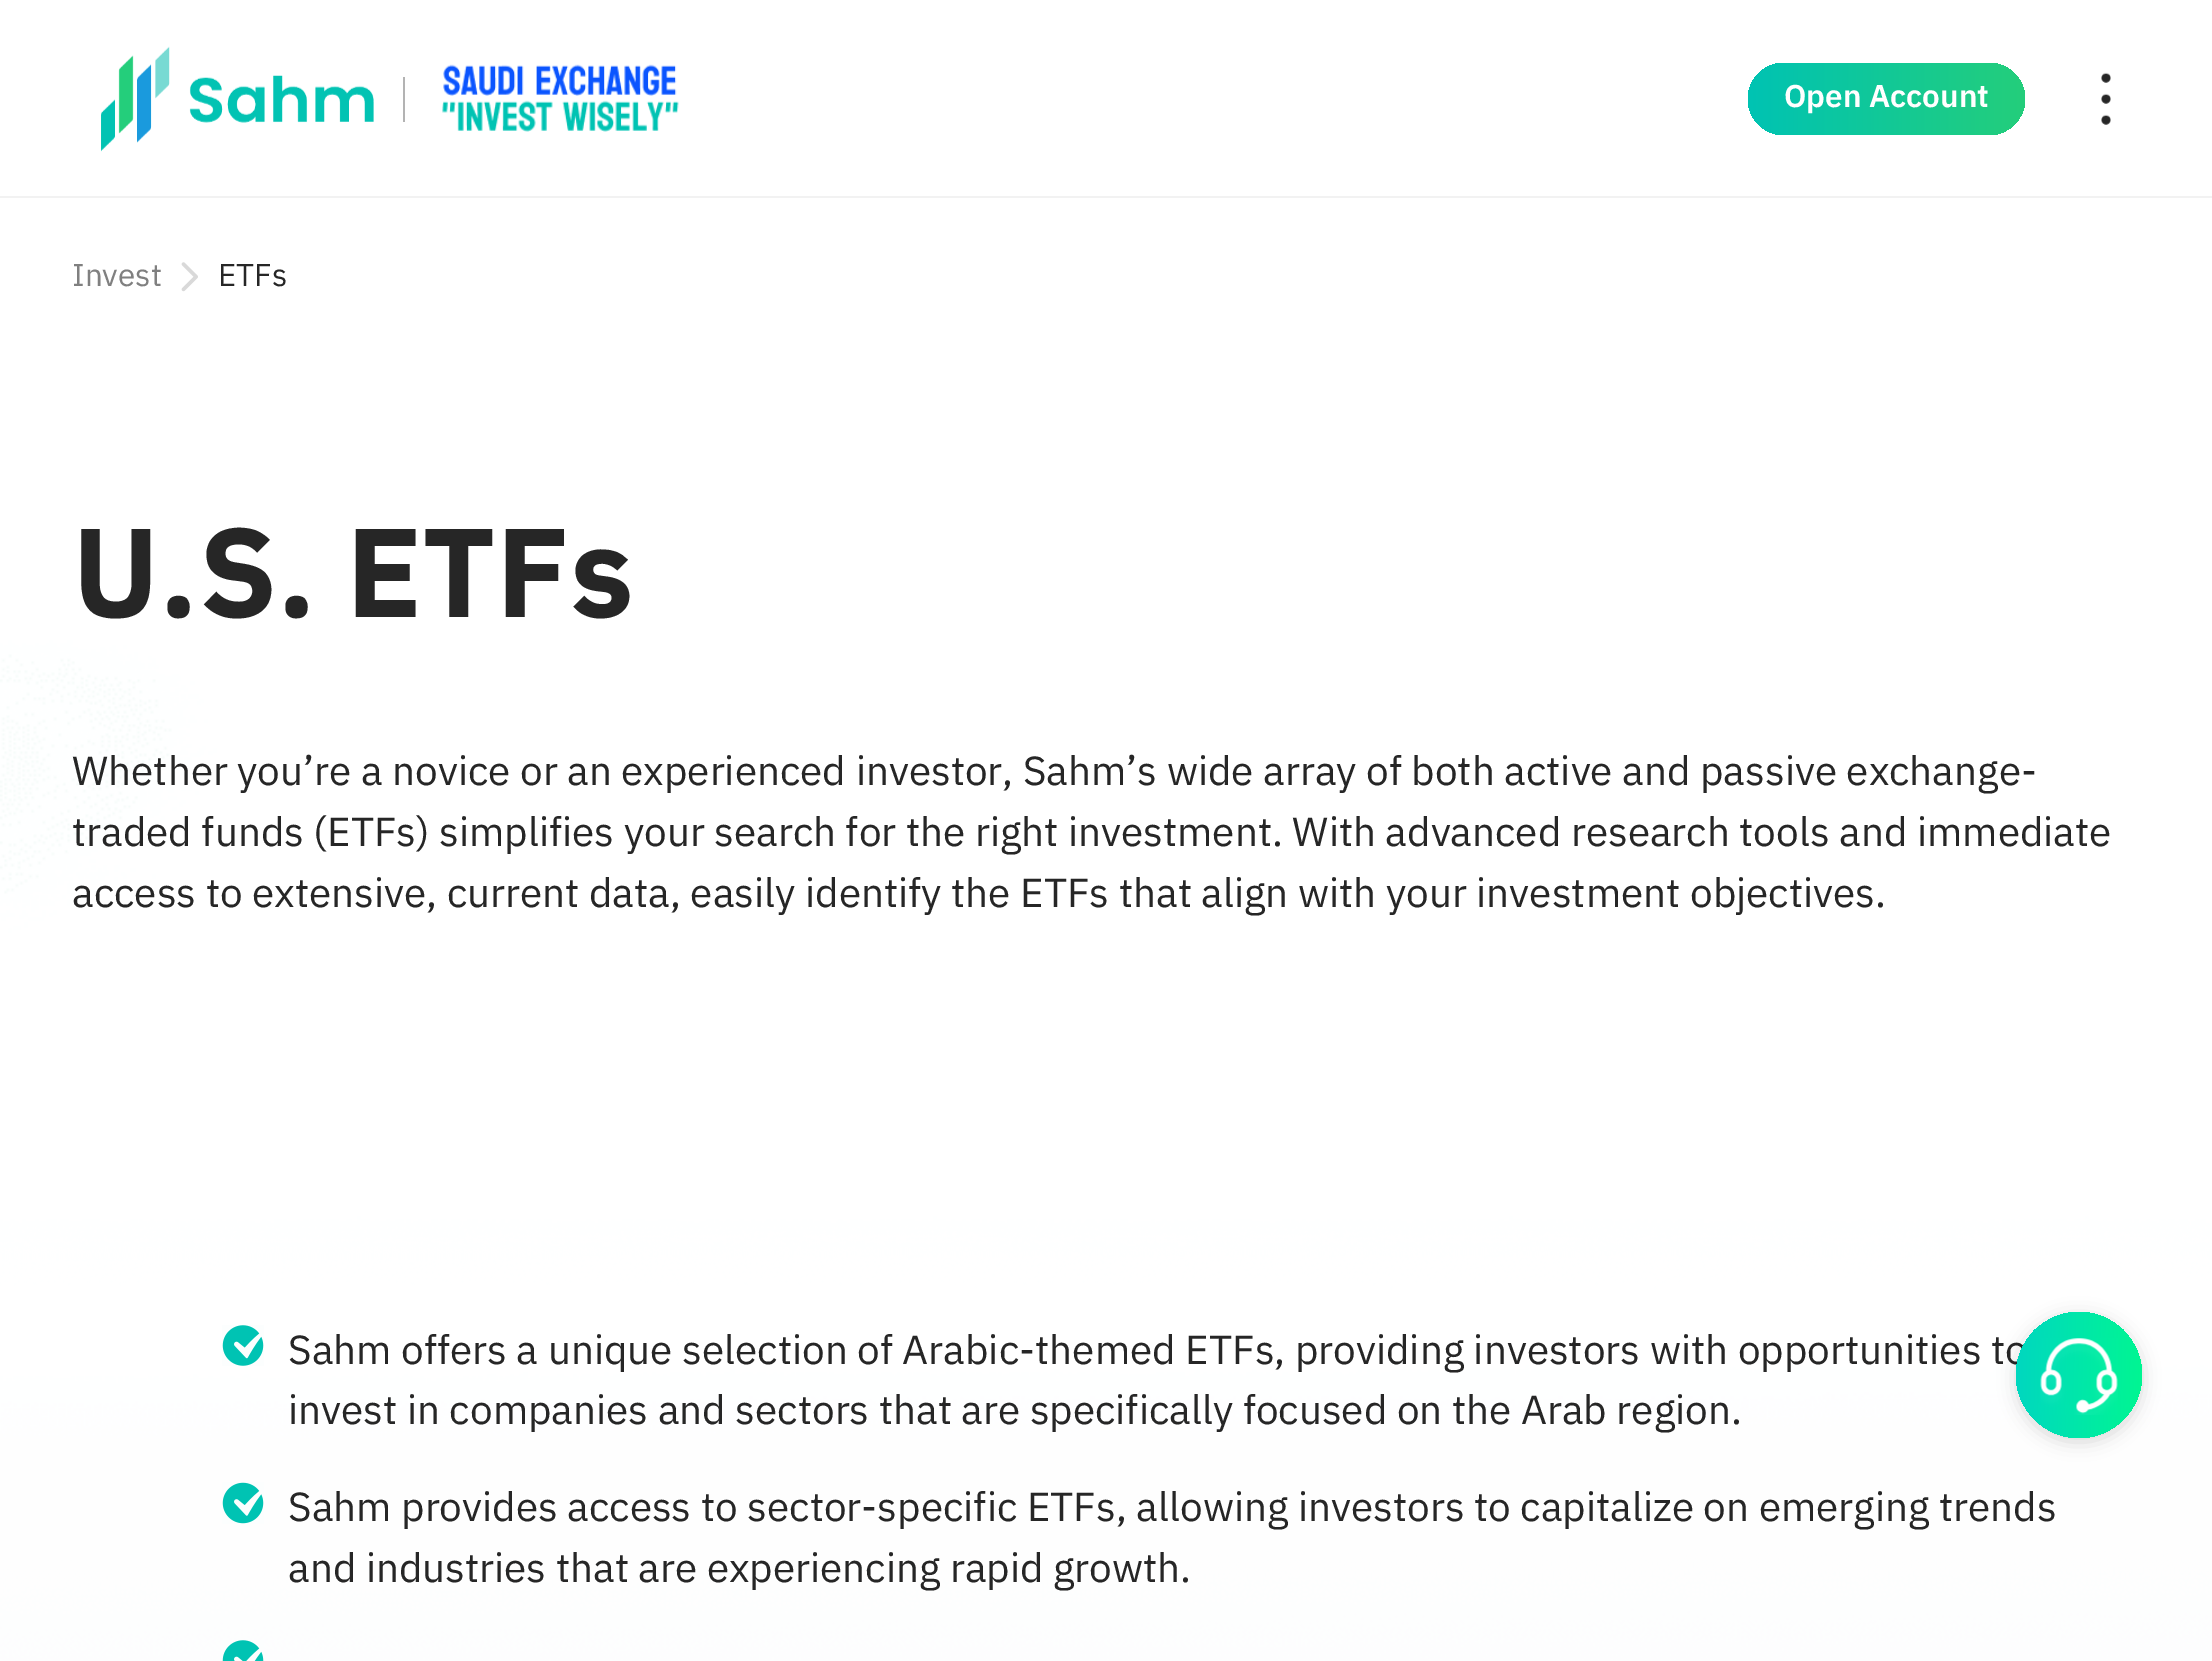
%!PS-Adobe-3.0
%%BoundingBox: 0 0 2212 1661
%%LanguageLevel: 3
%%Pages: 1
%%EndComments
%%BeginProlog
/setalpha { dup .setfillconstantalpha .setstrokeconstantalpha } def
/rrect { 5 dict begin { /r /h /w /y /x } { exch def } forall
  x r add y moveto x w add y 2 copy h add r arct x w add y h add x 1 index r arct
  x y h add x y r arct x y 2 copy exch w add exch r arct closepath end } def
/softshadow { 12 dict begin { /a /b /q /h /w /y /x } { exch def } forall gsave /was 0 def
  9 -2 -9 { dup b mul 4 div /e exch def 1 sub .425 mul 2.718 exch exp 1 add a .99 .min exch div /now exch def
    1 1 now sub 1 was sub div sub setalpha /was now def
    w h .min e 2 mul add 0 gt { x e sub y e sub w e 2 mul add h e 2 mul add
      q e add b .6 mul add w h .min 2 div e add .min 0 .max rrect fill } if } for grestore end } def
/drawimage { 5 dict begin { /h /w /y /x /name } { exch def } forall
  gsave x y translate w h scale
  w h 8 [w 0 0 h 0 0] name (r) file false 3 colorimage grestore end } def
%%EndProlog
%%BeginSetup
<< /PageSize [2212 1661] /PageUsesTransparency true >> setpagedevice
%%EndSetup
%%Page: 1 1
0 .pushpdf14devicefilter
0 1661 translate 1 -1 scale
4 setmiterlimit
1 setgray
0 0 2212 1661 rectfill
(images/1.raw) 0 0 2212 1661 drawimage
0.949 setgray
0 196 2212 2 rectfill
(images/2.raw) 101 46 273 106 drawimage
0.702 setgray
403 77 2 45 rectfill
(images/3.raw) 442 64 237 68 drawimage
gsave 1748 63 277 72 36 rrect clip newpath
<< /ShadingType 2 /ColorSpace /DeviceRGB /Coords [2025 99 1748 99] /Extend [true true] /Function << /FunctionType 2 /Domain [0 1] /C0 [0.141 0.808 0.482] /C1 [0 0.765 0.702] /N 1 >> >> shfill grestore
(images/4.raw) 2101 72 10 53 drawimage
(images/5.raw) 181 262 17 30 drawimage
(images/6.raw) 222 1325 42 41 drawimage
(images/7.raw) 222 1482 42 42 drawimage
(images/8.raw) 222 1640 42 21 drawimage
0 setgray
2016 1316 126 126 63 9 0.15 softshadow
/IBMPlexSansArabic-SemiBold [31.5 0 0 -31.5 0 0] selectfont
1 setgray
1784 107 moveto (Open Account) show
/IBMPlexSansArabic-Regular [31.5 0 0 -31.5 0 0] selectfont
0.502 setgray
72 286 moveto (Invest) show
0.149 setgray
218 286 moveto (ETFs) show
/IBMPlexSansArabic-Bold [126 0 0 -126 0 0] selectfont
72 617 moveto (U.S. ETFs) show
/IBMPlexSansArabic-Regular [40.5 0 0 -40.5 0 0] selectfont
72 785 moveto (Whether you’re a novice or an experienced investor, Sahm’s wide array of both active and passive exchange-) show
72 846 moveto (traded funds \(ETFs\) simplifies your search for the right investment. With advanced research tools and immediate) show
72 907 moveto (access to extensive, current data, easily identify the ETFs that align with your investment objectives.) show
288 1364 moveto (Sahm offers a unique selection of Arabic-themed ETFs, providing investors with opportunities to) show
288 1424 moveto (invest in companies and sectors that are specifically focused on the Arab region.) show
288 1521 moveto (Sahm provides access to sector-specific ETFs, allowing investors to capitalize on emerging trends) show
288 1582 moveto (and industries that are experiencing rapid growth.) show
gsave newpath 2079 1375 63 0 360 arc closepath clip newpath
<< /ShadingType 2 /ColorSpace /DeviceRGB /Coords [2015 1374 2180 1377] /Extend [true true] /Function << /FunctionType 3 /Domain [0 1] /Functions [<< /FunctionType 2 /Domain [0 1] /C0 [0 0.847 0.749] /C1 [0 0.847 0.749] /N 1 >> << /FunctionType 2 /Domain [0 1] /C0 [0 0.847 0.749] /C1 [0 1 0.522] /N 1 >>] /Bounds [0.02] /Encode [0 1 0 1] >> >> shfill grestore
(images/9.raw) 2040 1338 78 77 drawimage
.poppdf14devicefilter showpage
%%EOF
